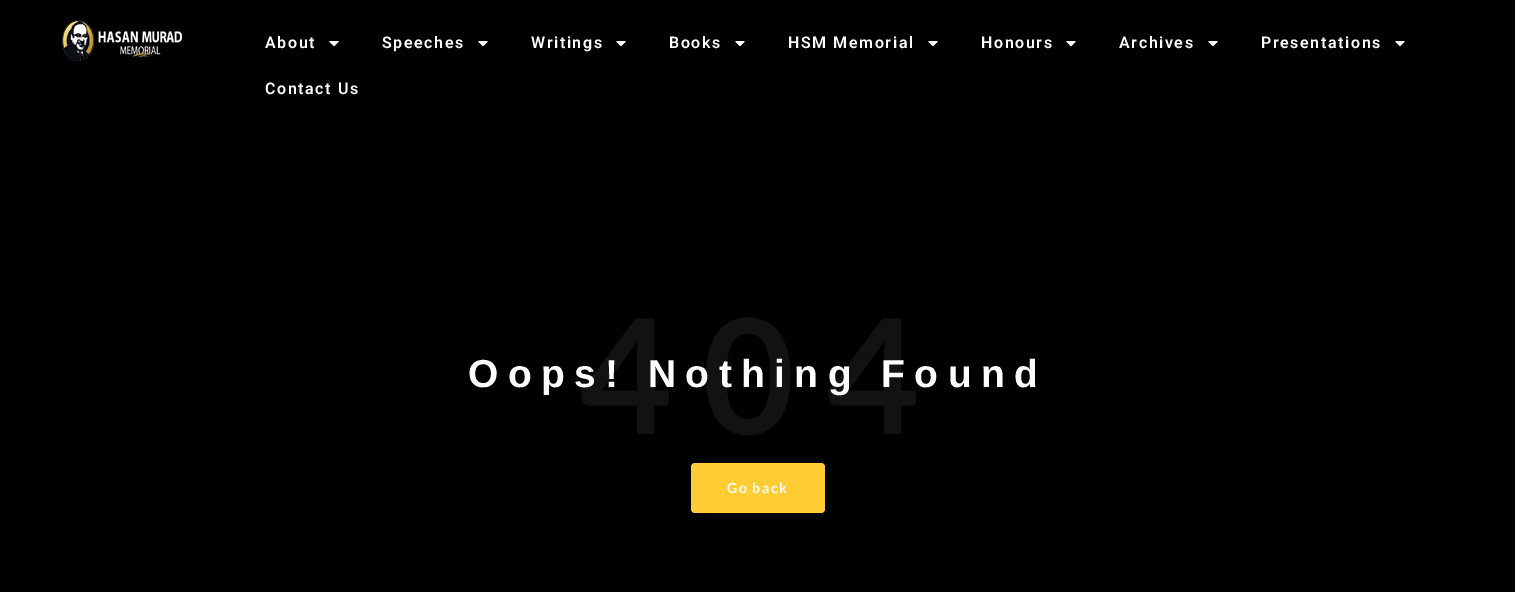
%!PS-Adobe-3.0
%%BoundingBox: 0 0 1515 592
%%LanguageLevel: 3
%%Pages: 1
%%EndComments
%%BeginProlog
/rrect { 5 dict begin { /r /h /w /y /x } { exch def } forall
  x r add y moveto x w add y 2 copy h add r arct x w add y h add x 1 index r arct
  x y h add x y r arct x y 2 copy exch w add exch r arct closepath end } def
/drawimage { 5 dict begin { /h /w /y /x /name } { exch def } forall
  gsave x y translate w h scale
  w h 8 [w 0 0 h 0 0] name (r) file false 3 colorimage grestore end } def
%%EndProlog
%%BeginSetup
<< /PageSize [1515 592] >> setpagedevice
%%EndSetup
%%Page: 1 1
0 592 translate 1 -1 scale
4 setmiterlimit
0 setgray
0 0 1515 592 rectfill
(images/1.raw) 62 20 120 41 drawimage
(images/2.raw) 329 41 10 6 drawimage
(images/2.raw) 478 41 10 6 drawimage
(images/2.raw) 616 41 10 6 drawimage
(images/2.raw) 735 41 10 6 drawimage
(images/2.raw) 928 41 10 6 drawimage
(images/2.raw) 1066 41 10 6 drawimage
(images/2.raw) 1208 41 10 6 drawimage
(images/2.raw) 1395 41 10 6 drawimage
1 0.8 0.2 setrgbcolor
691 463 134 50 4 rrect fill
/Roboto-SemiBold [16 0 0 -16 0 0] selectfont
1 setgray
265 48 moveto 1.6 0 (About) ashow
382 48 moveto 1.6 0 (Speeches) ashow
531 48 moveto 1.6 0 (Writings) ashow
669 48 moveto 1.6 0 (Books) ashow
788 48 moveto 1.6 0 (HSM Memorial) ashow
981 48 moveto 1.6 0 (Honours) ashow
1119 48 moveto 1.6 0 (Archives) ashow
1261 48 moveto 1.6 0 (Presentations) ashow
265 94 moveto 1.6 0 (Contact Us) ashow
/Lato-Bold [160 0 0 -160 0 0] selectfont
0.071 setgray
579 434 moveto 30.5 0 (404) ashow
/LiberationSans-Bold [39 0 0 -39 0 0] selectfont
1 setgray
468 387 moveto 9.4 0 (Oops! Nothing Found) ashow
/Lato-Bold [14 0 0 -14 0 0] selectfont
727 493 moveto 1.5 0 (Go back) ashow
showpage
%%EOF
